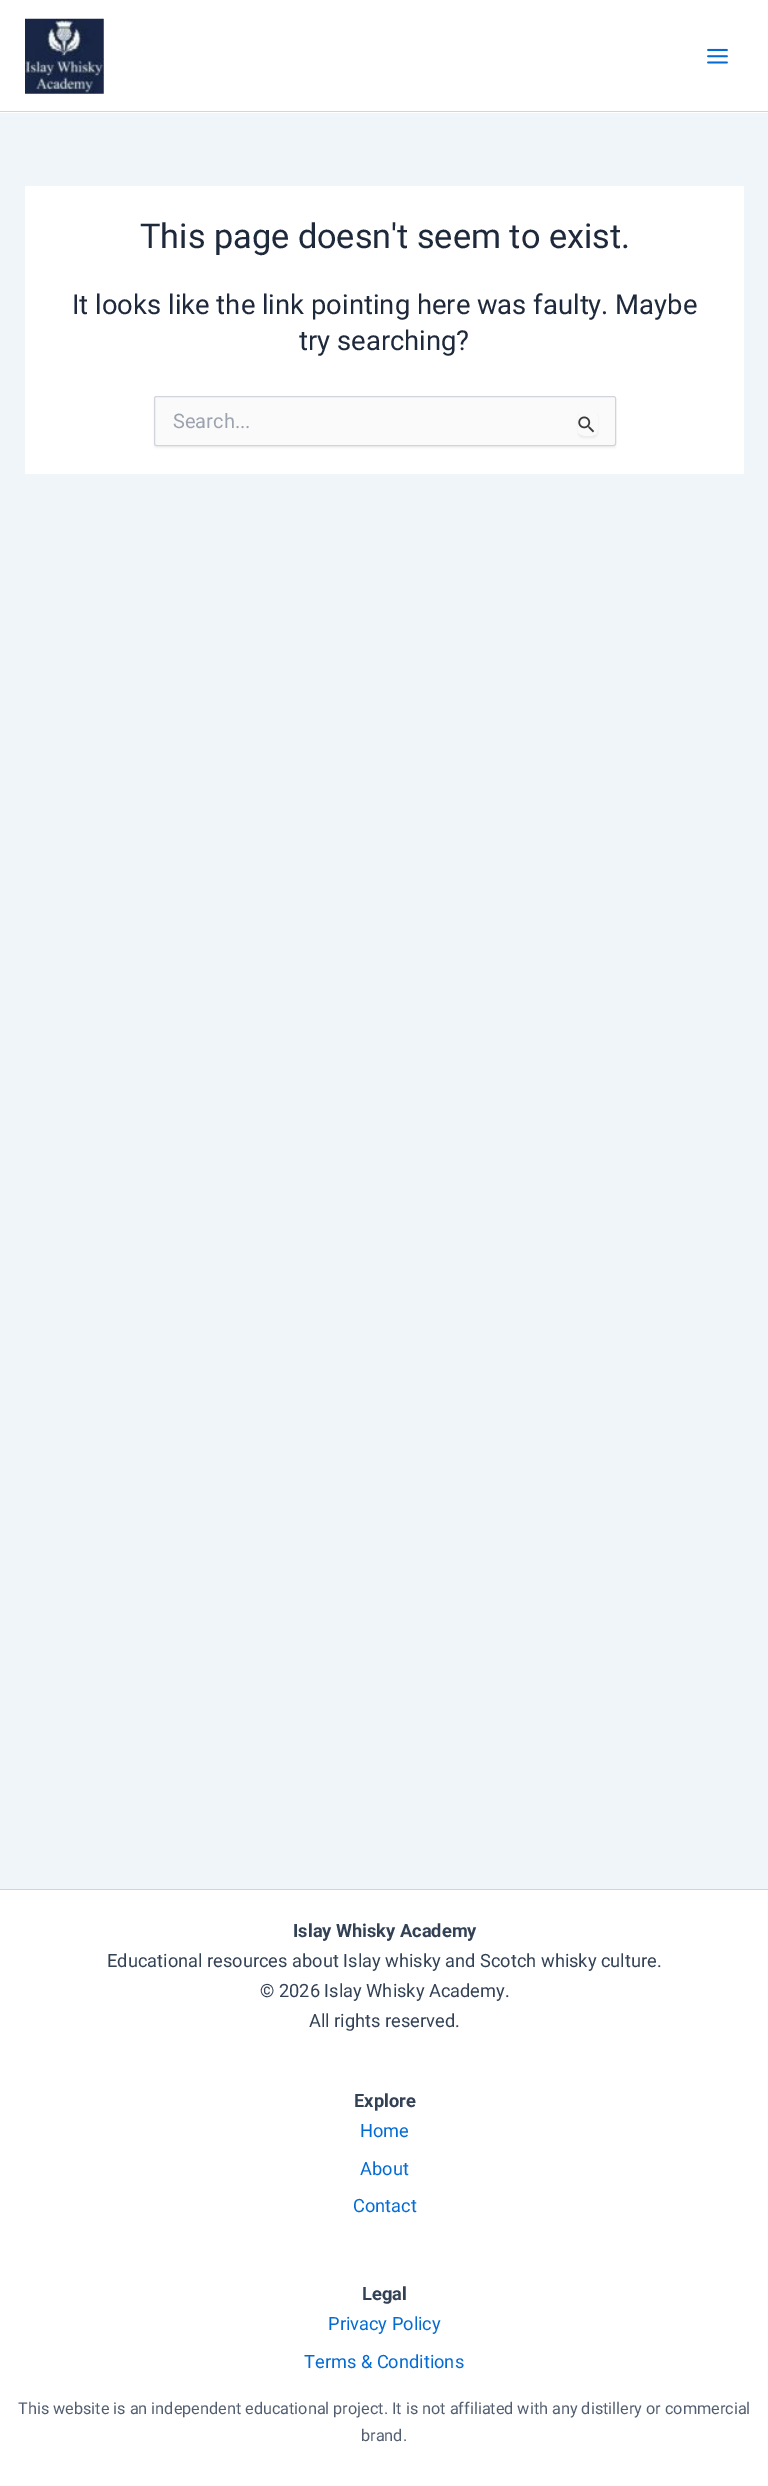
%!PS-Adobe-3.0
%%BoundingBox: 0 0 768 2486
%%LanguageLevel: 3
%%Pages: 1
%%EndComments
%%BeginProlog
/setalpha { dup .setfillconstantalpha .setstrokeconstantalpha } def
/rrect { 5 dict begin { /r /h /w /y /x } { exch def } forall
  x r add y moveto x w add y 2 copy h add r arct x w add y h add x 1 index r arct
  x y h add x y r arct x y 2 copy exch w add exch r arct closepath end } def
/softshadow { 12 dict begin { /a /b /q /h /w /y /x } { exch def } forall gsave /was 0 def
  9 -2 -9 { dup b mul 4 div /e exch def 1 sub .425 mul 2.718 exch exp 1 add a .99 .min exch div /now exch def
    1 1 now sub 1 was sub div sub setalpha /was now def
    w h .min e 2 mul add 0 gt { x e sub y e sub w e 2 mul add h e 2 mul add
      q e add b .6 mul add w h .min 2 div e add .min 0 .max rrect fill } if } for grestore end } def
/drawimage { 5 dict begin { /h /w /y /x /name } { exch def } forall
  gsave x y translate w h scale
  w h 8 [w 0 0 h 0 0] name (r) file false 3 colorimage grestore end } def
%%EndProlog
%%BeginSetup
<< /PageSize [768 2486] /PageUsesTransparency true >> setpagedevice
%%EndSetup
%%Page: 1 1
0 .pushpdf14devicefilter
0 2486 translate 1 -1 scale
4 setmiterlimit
0.941 0.961 0.98 setrgbcolor
0 0 768 2486 rectfill
1 setgray
0 0 768 113 rectfill
0.82 0.835 0.859 setrgbcolor
0 111 768 1 rectfill
(images/1.raw) 25 18 79 76 drawimage
(images/2.raw) 707 48 21 16 drawimage
1 setgray
25 186 719 288 rectfill
0 setgray
154 398 462 50 2.5 1 0.05 softshadow
0.98 setgray
154.5 396.5 461 49 2 rrect gsave fill grestore
0.82 0.835 0.859 setrgbcolor
stroke
gsave
newpath 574 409 moveto 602 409 lineto 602 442 lineto 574 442 lineto closepath 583 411 moveto 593 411 lineto 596 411 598 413 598 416 curveto 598 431 lineto 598 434 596 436 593 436 curveto 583 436 lineto 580 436 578 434 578 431 curveto 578 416 lineto 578 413 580 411 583 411 curveto closepath eoclip newpath
0 setgray
578 413 20 25 5 1 0.05 softshadow
grestore
(images/3.raw) 578 416 17 17 drawimage
1 setgray
0 1890 768 596 rectfill
0.82 0.835 0.859 setrgbcolor
0 1889 768 1 rectfill
/Roboto-Regular [34.25 0 0 -34.25 0 0] selectfont
0.118 0.161 0.231 setrgbcolor
140 248 moveto (This page doesn't seem to exist.) show
/Roboto-Regular [27.4 0 0 -27.4 0 0] selectfont
72 314 moveto (It looks like the link pointing here was faulty. Maybe) show
299 350 moveto (try searching?) show
/Roboto-Regular [20 0 0 -20 0 0] selectfont
0.612 0.639 0.686 setrgbcolor
173 428 moveto (Search...) show
/Roboto-Bold [18.25 0 0 -18.25 0 0] selectfont
0.2 0.255 0.333 setrgbcolor
293 1937 moveto (Islay Whisky Academy) show
/Roboto-Regular [18.25 0 0 -18.25 0 0] selectfont
107 1967 moveto (Educational resources about Islay whisky and Scotch whisky culture.) show
260 1997 moveto (© 2026 Islay Whisky Academy.) show
309 2027 moveto (All rights reserved.) show
/Roboto-Bold [18.25 0 0 -18.25 0 0] selectfont
354 2107 moveto (Explore) show
/Roboto-Regular [18.25 0 0 -18.25 0 0] selectfont
0.016 0.42 0.824 setrgbcolor
360 2137 moveto (Home) show
360 2175 moveto (About) show
353 2212 moveto (Contact) show
/Roboto-Bold [18.25 0 0 -18.25 0 0] selectfont
0.2 0.255 0.333 setrgbcolor
362 2300 moveto (Legal) show
/Roboto-Regular [18.25 0 0 -18.25 0 0] selectfont
0.016 0.42 0.824 setrgbcolor
328 2330 moveto (Privacy Policy) show
304 2368 moveto (Terms & Conditions) show
/Roboto-Regular [16.25 0 0 -16.25 0 0] selectfont
0.322 0.369 0.435 setrgbcolor
18 2414 moveto (This website is an independent educational project. It is not affiliated with any distillery or commercial) show
361 2441 moveto (brand.) show
.poppdf14devicefilter showpage
%%EOF
